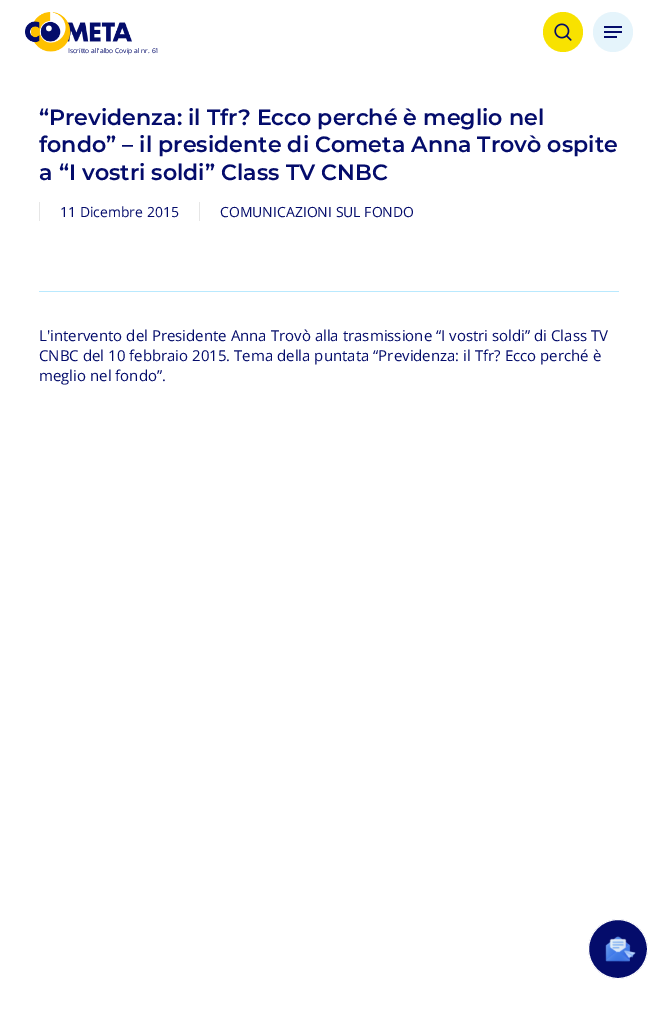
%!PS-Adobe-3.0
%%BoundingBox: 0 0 658 1009
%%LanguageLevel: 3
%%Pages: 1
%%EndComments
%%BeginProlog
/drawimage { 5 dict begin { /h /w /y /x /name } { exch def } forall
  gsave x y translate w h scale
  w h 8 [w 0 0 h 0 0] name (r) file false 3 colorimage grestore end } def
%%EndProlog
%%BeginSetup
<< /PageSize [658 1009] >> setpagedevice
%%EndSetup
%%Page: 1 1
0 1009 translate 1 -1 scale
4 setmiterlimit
1 setgray
0 0 658 1009 rectfill
(images/1.raw) 25 12 107 40 drawimage
0.973 0.886 0 setrgbcolor
newpath 563 32 20 0 360 arc closepath fill
(images/2.raw) 554 23 18 18 drawimage
0.898 0.957 0.984 setrgbcolor
newpath 613 32 20 0 360 arc closepath fill
0.016 0.047 0.42 setrgbcolor
604 26 18 2 rectfill
604 36 13 2 rectfill
604 31 18 2 rectfill
0.725 0.914 0.996 setrgbcolor
39 291 580 1 rectfill
0.902 setgray
39 202 1 19 rectfill
199 202 1 19 rectfill
0.016 0.047 0.42 setrgbcolor
newpath 618 949 29.5 0 360 arc closepath gsave fill grestore
1 setgray
stroke
(images/3.raw) 605 936 31 26 drawimage
/OpenSans-Regular [6.7 0 0 -6.7 0 0] selectfont
0.016 0.047 0.42 setrgbcolor
68 53 moveto (Iscritto all'albo Covip al nr. 61) show
/Montserrat-SemiBold [22.1 0 0 -22.1 0 0] selectfont
39 125 moveto (“Previdenza: il Tfr? Ecco perché è meglio nel) show
39 152 moveto (fondo” – il presidente di Cometa Anna Trovò ospite) show
39 180 moveto (a “I vostri soldi” Class TV CNBC) show
/OpenSans-Regular [14 0 0 -14 0 0] selectfont
60 217 moveto (11 Dicembre 2015) show
220 217 moveto (COMUNICAZIONI SUL FONDO) show
/OpenSans-Regular [15 0 0 -15 0 0] selectfont
39 341 moveto (L'intervento del Presidente Anna Trovò alla trasmissione “I vostri soldi” di Class TV) show
39 361 moveto (CNBC del 10 febbraio 2015. Tema della puntata “Previdenza: il Tfr? Ecco perché è) show
39 381 moveto (meglio nel fondo”.) show
showpage
%%EOF
